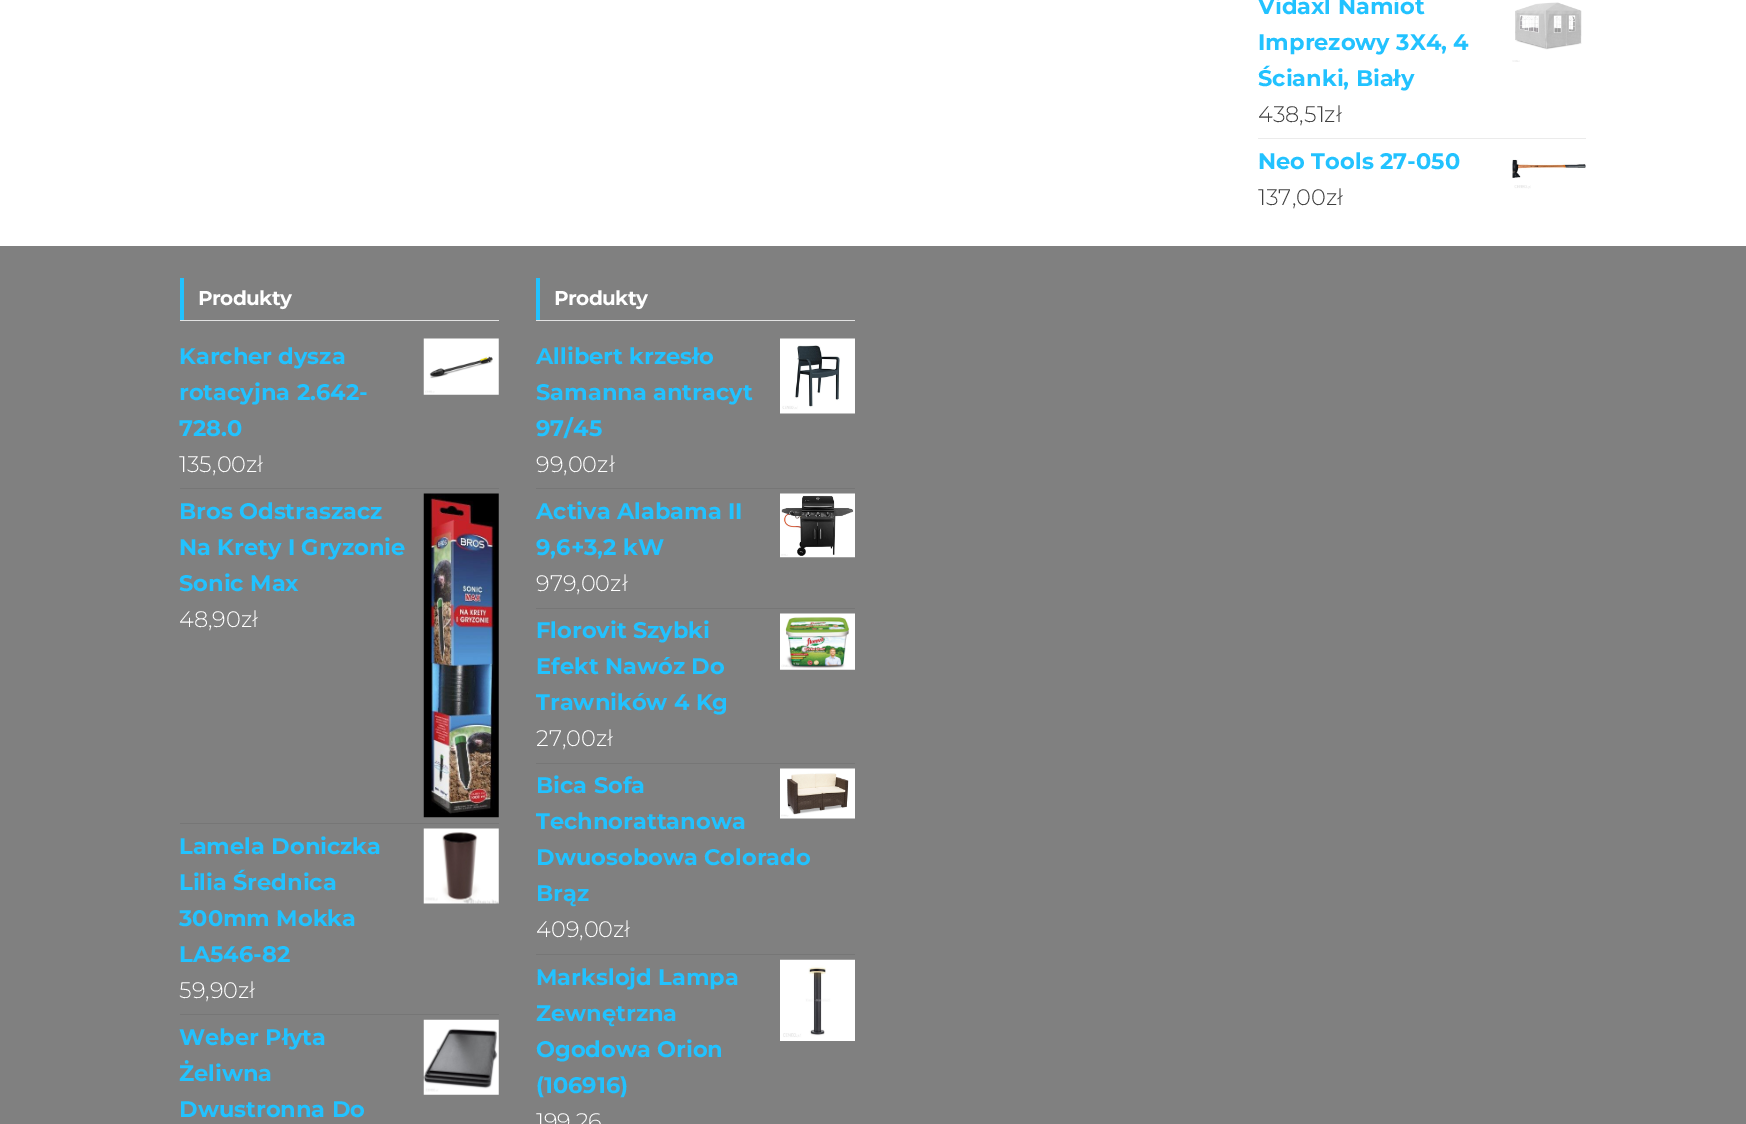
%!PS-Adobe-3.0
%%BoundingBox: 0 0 1746 1124
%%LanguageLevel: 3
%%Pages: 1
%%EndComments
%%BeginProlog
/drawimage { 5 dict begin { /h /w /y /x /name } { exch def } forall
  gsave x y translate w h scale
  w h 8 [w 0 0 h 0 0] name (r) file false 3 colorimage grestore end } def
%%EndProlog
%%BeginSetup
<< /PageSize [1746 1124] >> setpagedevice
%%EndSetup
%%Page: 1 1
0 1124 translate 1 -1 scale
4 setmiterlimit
1 setgray
0 0 1746 1124 rectfill
0.922 setgray
1258 138 328 1 rectfill
(images/1.raw) 1512 2 70 60 drawimage
(images/2.raw) 1512 159 74 30 drawimage
0.502 setgray
0 246 1746 878 rectfill
0.886 setgray
180 320 319 1 rectfill
0.133 0.761 1 setrgbcolor
180 278 4 42 rectfill
0.463 setgray
180 488 319 1 rectfill
(images/3.raw) 423 338 76 57 drawimage
180 823 319 1 rectfill
(images/4.raw) 423 493 76 325 drawimage
180 1014 319 1 rectfill
(images/5.raw) 423 828 76 76 drawimage
(images/6.raw) 423 1019 76 76 drawimage
0.886 setgray
536 320 319 1 rectfill
0.133 0.761 1 setrgbcolor
536 278 4 42 rectfill
0.463 setgray
536 488 319 1 rectfill
(images/7.raw) 780 338 75 76 drawimage
536 608 319 1 rectfill
(images/8.raw) 780 493 75 65 drawimage
536 763 319 1 rectfill
(images/9.raw) 780 613 75 57 drawimage
536 954 319 1 rectfill
(images/10.raw) 780 768 75 51 drawimage
(images/11.raw) 780 959 75 82 drawimage
/Montserrat-Bold [22.5 0 0 -22.5 0 0] selectfont
0.133 0.761 1 setrgbcolor
1258 14 moveto (Vidaxl Namiot) show
1258 50 moveto (Imprezowy 3X4, 4) show
1258 86 moveto (Ścianki, Biały) show
/Montserrat-Light [22.5 0 0 -22.5 0 0] selectfont
0.251 setgray
1258 122 moveto (438,51zł) show
/Montserrat-Bold [22.5 0 0 -22.5 0 0] selectfont
0.133 0.761 1 setrgbcolor
1258 169 moveto (Neo Tools 27-050) show
/Montserrat-Light [22.5 0 0 -22.5 0 0] selectfont
0.251 setgray
1258 205 moveto (137,00zł) show
/Montserrat-Bold [20 0 0 -20 0 0] selectfont
1 setgray
198 305 moveto -0.5 0 (Produkty) ashow
/Montserrat-Bold [22.5 0 0 -22.5 0 0] selectfont
0.133 0.761 1 setrgbcolor
179 364 moveto (Karcher dysza) show
179 400 moveto (rotacyjna 2.642-) show
179 436 moveto (728.0) show
/Montserrat-Light [22.5 0 0 -22.5 0 0] selectfont
1 setgray
179 472 moveto (135,00zł) show
/Montserrat-Bold [22.5 0 0 -22.5 0 0] selectfont
0.133 0.761 1 setrgbcolor
179 519 moveto (Bros Odstraszacz) show
179 555 moveto (Na Krety I Gryzonie) show
179 591 moveto (Sonic Max) show
/Montserrat-Light [22.5 0 0 -22.5 0 0] selectfont
1 setgray
179 627 moveto (48,90zł) show
/Montserrat-Bold [22.5 0 0 -22.5 0 0] selectfont
0.133 0.761 1 setrgbcolor
179 854 moveto (Lamela Doniczka) show
179 890 moveto (Lilia Średnica) show
179 926 moveto (300mm Mokka) show
179 962 moveto (LA546-82) show
/Montserrat-Light [22.5 0 0 -22.5 0 0] selectfont
1 setgray
179 998 moveto (59,90zł) show
/Montserrat-Bold [22.5 0 0 -22.5 0 0] selectfont
0.133 0.761 1 setrgbcolor
179 1045 moveto (Weber Płyta) show
179 1081 moveto (Żeliwna) show
179 1117 moveto (Dwustronna Do) show
/Montserrat-Bold [20 0 0 -20 0 0] selectfont
1 setgray
554 305 moveto -0.5 0 (Produkty) ashow
/Montserrat-Bold [22.5 0 0 -22.5 0 0] selectfont
0.133 0.761 1 setrgbcolor
536 364 moveto (Allibert krzesło) show
536 400 moveto (Samanna antracyt) show
536 436 moveto (97/45) show
/Montserrat-Light [22.5 0 0 -22.5 0 0] selectfont
1 setgray
536 472 moveto (99,00zł) show
/Montserrat-Bold [22.5 0 0 -22.5 0 0] selectfont
0.133 0.761 1 setrgbcolor
536 519 moveto (Activa Alabama II) show
536 555 moveto (9,6+3,2 kW) show
/Montserrat-Light [22.5 0 0 -22.5 0 0] selectfont
1 setgray
536 591 moveto (979,00zł) show
/Montserrat-Bold [22.5 0 0 -22.5 0 0] selectfont
0.133 0.761 1 setrgbcolor
536 638 moveto (Florovit Szybki) show
536 674 moveto (Efekt Nawóz Do) show
536 710 moveto (Trawników 4 Kg) show
/Montserrat-Light [22.5 0 0 -22.5 0 0] selectfont
1 setgray
536 746 moveto (27,00zł) show
/Montserrat-Bold [22.5 0 0 -22.5 0 0] selectfont
0.133 0.761 1 setrgbcolor
536 793 moveto (Bica Sofa) show
536 829 moveto (Technorattanowa) show
536 865 moveto (Dwuosobowa Colorado) show
536 901 moveto (Brąz) show
/Montserrat-Light [22.5 0 0 -22.5 0 0] selectfont
1 setgray
536 937 moveto (409,00zł) show
/Montserrat-Bold [22.5 0 0 -22.5 0 0] selectfont
0.133 0.761 1 setrgbcolor
536 985 moveto (Markslojd Lampa) show
536 1021 moveto (Zewnętrzna) show
536 1057 moveto (Ogodowa Orion) show
536 1093 moveto (\(106916\)) show
/Montserrat-Light [22.5 0 0 -22.5 0 0] selectfont
1 setgray
536 1129 moveto (199,26) show
showpage
%%EOF
